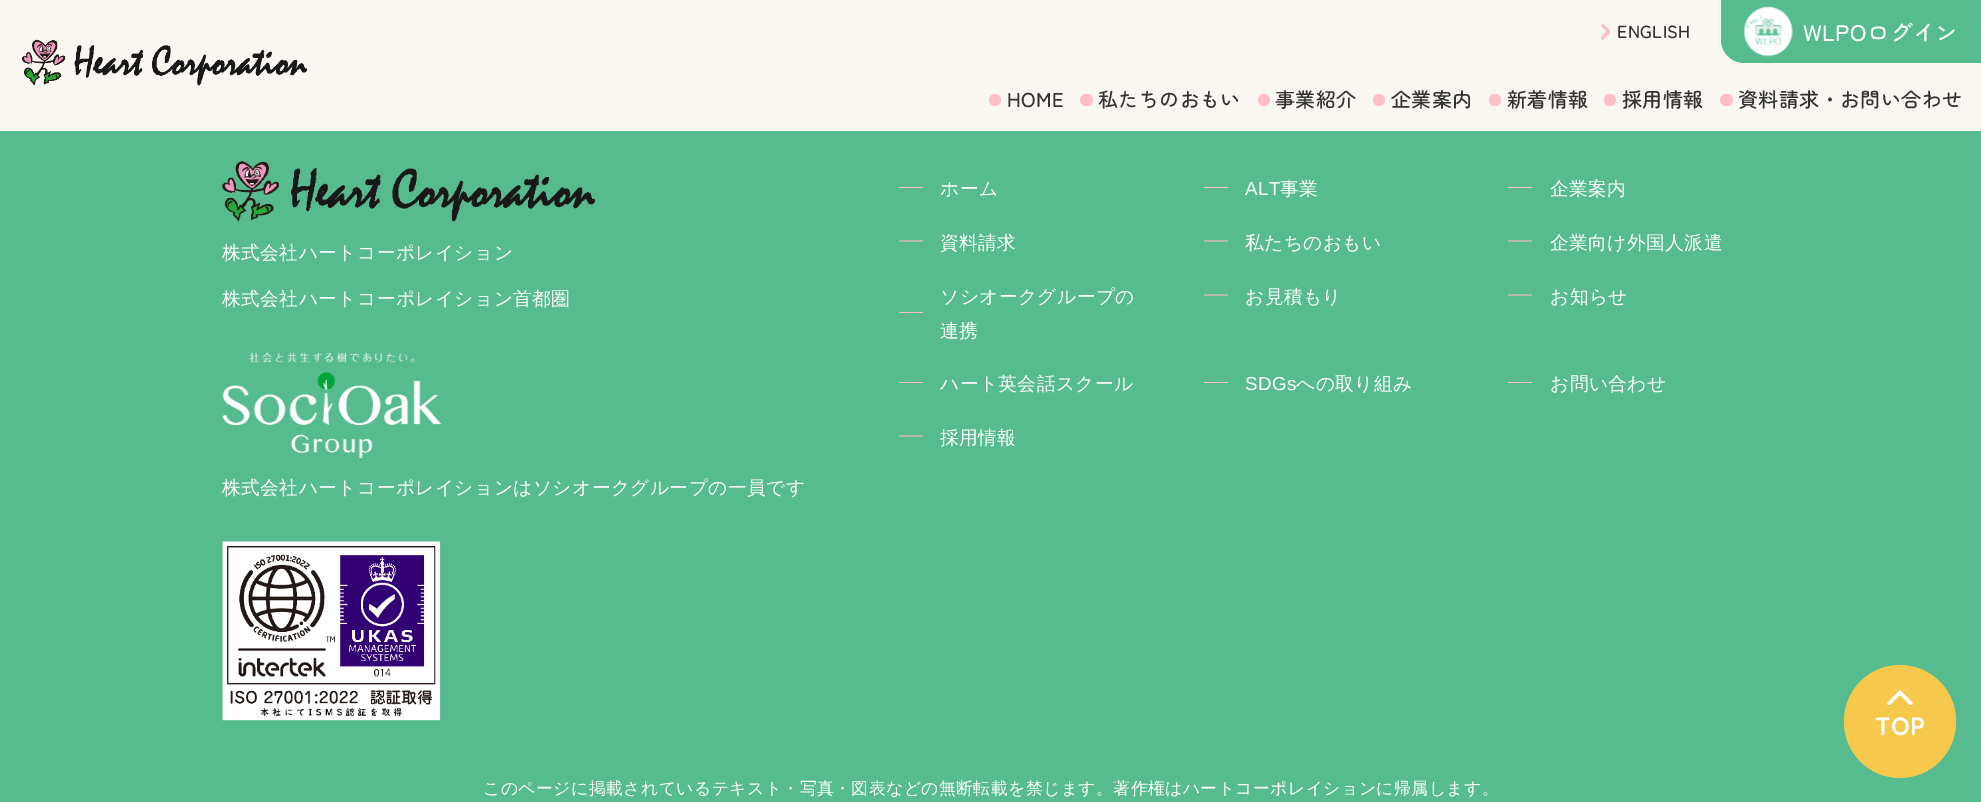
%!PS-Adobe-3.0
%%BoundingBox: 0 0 1981 802
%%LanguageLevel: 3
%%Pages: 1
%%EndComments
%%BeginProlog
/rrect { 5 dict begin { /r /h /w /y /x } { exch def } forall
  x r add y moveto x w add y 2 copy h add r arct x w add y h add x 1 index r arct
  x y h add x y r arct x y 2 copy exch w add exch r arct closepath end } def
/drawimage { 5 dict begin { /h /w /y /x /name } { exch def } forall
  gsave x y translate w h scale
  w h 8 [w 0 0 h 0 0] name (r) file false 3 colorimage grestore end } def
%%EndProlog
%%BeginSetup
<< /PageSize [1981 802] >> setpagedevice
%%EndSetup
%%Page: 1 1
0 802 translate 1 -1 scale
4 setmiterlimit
0.337 0.737 0.561 setrgbcolor
0 0 1981 802 rectfill
0.98 0.969 0.953 setrgbcolor
0 0 1981 131 rectfill
(images/1.raw) 21 39 287 47 drawimage
gsave
newpath 1606 23 moveto 1609.5 23 1612.5 27 1612.5 32 curveto 1612.5 36.5 1609.5 40.5 1606 40.5 curveto 1603 40.5 1600 36.5 1600 32 curveto 1600 27 1603 23 1606 23 curveto closepath clip newpath
1600 23 10 17 rectclip
1 0.749 0.78 setrgbcolor
3.2 setlinewidth
1 setlinecap
1 setlinejoin
newpath 1601.5 24.5 moveto 1609 31.5 lineto 1601.5 39 lineto stroke
grestore
0.337 0.737 0.561 setrgbcolor
newpath 1721 0 moveto 1981 0 lineto 1981 63 lineto 1744 63 lineto 1731.5 63 1721 52.5 1721 40 curveto closepath fill
(images/2.raw) 1743 6 50 51 drawimage
1 0.749 0.78 setrgbcolor
newpath 995 100 6 0 360 arc closepath fill
1080 94 13 12 6 rrect fill
newpath 1264 100 6 0 360 arc closepath fill
newpath 1379 100 6 0 360 arc closepath fill
newpath 1495 100 6 0 360 arc closepath fill
newpath 1610 100 6 0 360 arc closepath fill
1720 94 13 12 6 rrect fill
(images/3.raw) 222 161 374 61 drawimage
(images/4.raw) 222 352 220 106 drawimage
(images/5.raw) 222 541 219 180 drawimage
newpath 911 187 moveto 917.5 187 923 187 923 187.5 curveto 923 188 917.5 188 911 188 curveto 904.5 188 899 188 899 187.5 curveto 899 187 904.5 187 911 187 curveto closepath fill
newpath 1216 187 moveto 1222.5 187 1228 187 1228 187.5 curveto 1228 188 1222.5 188 1216 188 curveto 1209.5 188 1204 188 1204 187.5 curveto 1204 187 1209.5 187 1216 187 curveto closepath fill
newpath 1520 187 moveto 1526.5 187 1532 187 1532 187.5 curveto 1532 188 1526.5 188 1520 188 curveto 1513.5 188 1508 188 1508 187.5 curveto 1508 187 1513.5 187 1520 187 curveto closepath fill
newpath 911 240.5 moveto 917.5 240.5 923 240.5 923 241 curveto 923 241.5 917.5 241.5 911 241.5 curveto 904.5 241.5 899 241.5 899 241 curveto 899 240.5 904.5 240.5 911 240.5 curveto closepath fill
newpath 1216 240.5 moveto 1222.5 240.5 1228 240.5 1228 241 curveto 1228 241.5 1222.5 241.5 1216 241.5 curveto 1209.5 241.5 1204 241.5 1204 241 curveto 1204 240.5 1209.5 240.5 1216 240.5 curveto closepath fill
newpath 1520 240.5 moveto 1526.5 240.5 1532 240.5 1532 241 curveto 1532 241.5 1526.5 241.5 1520 241.5 curveto 1513.5 241.5 1508 241.5 1508 241 curveto 1508 240.5 1513.5 240.5 1520 240.5 curveto closepath fill
newpath 911 312 moveto 917.5 312 923 312 923 312.5 curveto 923 313 917.5 313 911 313 curveto 904.5 313 899 313 899 312.5 curveto 899 312 904.5 312 911 312 curveto closepath fill
newpath 1216 294.5 moveto 1222.5 294.5 1228 294.5 1228 295 curveto 1228 295.5 1222.5 295.5 1216 295.5 curveto 1209.5 295.5 1204 295.5 1204 295 curveto 1204 294.5 1209.5 294.5 1216 294.5 curveto closepath fill
newpath 1520 294.5 moveto 1526.5 294.5 1532 294.5 1532 295 curveto 1532 295.5 1526.5 295.5 1520 295.5 curveto 1513.5 295.5 1508 295.5 1508 295 curveto 1508 294.5 1513.5 294.5 1520 294.5 curveto closepath fill
newpath 911 382 moveto 917.5 382 923 382 923 382.5 curveto 923 383 917.5 383 911 383 curveto 904.5 383 899 383 899 382.5 curveto 899 382 904.5 382 911 382 curveto closepath fill
newpath 1216 382 moveto 1222.5 382 1228 382 1228 382.5 curveto 1228 383 1222.5 383 1216 383 curveto 1209.5 383 1204 383 1204 382.5 curveto 1204 382 1209.5 382 1216 382 curveto closepath fill
newpath 1520 382 moveto 1526.5 382 1532 382 1532 382.5 curveto 1532 383 1526.5 383 1520 383 curveto 1513.5 383 1508 383 1508 382.5 curveto 1508 382 1513.5 382 1520 382 curveto closepath fill
newpath 911 435.5 moveto 917.5 435.5 923 435.5 923 436 curveto 923 436.5 917.5 436.5 911 436.5 curveto 904.5 436.5 899 436.5 899 436 curveto 899 435.5 904.5 435.5 911 435.5 curveto closepath fill
0.965 0.784 0.298 setrgbcolor
1844 665 112 113 56 rrect fill
gsave
newpath 1887.5 705 moveto 1887.5 690 lineto 1912.5 690 lineto 1912.5 705 lineto closepath clip newpath
1 setgray
3.2 setlinewidth
1 setlinecap
newpath 1889 703.5 moveto 1900 692.5 lineto 1911 703.5 lineto stroke
grestore
/ZenMaruGothic-Medium [17.5 0 0 -17.5 0 0] selectfont
0.2 setgray
1617 38 moveto 0.4 0 (ENGLISH) ashow
/ZenMaruGothic-Medium [22.5 0 0 -22.5 0 0] selectfont
1 setgray
1803 41 moveto 0.4 0 (WLPOログイン) ashow
/ZenMaruGothic-Medium [20 0 0 -20 0 0] selectfont
0.2 setgray
1007 107 moveto 0.4 0 (HOME) ashow
1098 107 moveto 0.4 0 (私たちのおもい) ashow
1275 107 moveto 0.4 0 (事業紹介) ashow
1391 107 moveto 0.4 0 (企業案内) ashow
1507 107 moveto 0.4 0 (新着情報) ashow
1622 107 moveto 0.4 0 (採用情報) ashow
1738 107 moveto 0.4 0 (資料請求・お問い合わせ) ashow
/WenQuanYiZenHei-Medium [18.75 0 0 -18.75 0 0] selectfont
1 setgray
222 259 moveto 0.4 0 (株式会社ハートコーポレイション) ashow
222 305 moveto 0.4 0 (株式会社ハートコーポレイション首都圏) ashow
222 494 moveto 0.4 0 (株式会社ハートコーポレイションはソシオークグループの一員です) ashow
940 195 moveto 0.4 0 (ホーム) ashow
/LiberationSans-Regular [18.75 0 0 -18.75 0 0] selectfont
1245 195 moveto 0.4 0 (ALT) ashow
/WenQuanYiZenHei-Medium [18.75 0 0 -18.75 0 0] selectfont
1280 195 moveto 0.4 0 (事業) ashow
1550 195 moveto 0.4 0 (企業案内) ashow
940 249 moveto 0.4 0 (資料請求) ashow
1245 249 moveto 0.4 0 (私たちのおもい) ashow
1550 249 moveto 0.4 0 (企業向け外国人派遣) ashow
940 303 moveto 0.4 0 (ソシオークグループの) ashow
940 337 moveto 0.4 0 (連携) ashow
1245 303 moveto 0.4 0 (お見積もり) ashow
1550 303 moveto 0.4 0 (お知らせ) ashow
940 390 moveto 0.4 0 (ハート英会話スクール) ashow
/LiberationSans-Regular [18.75 0 0 -18.75 0 0] selectfont
1245 390 moveto 0.4 0 (SDGs) ashow
/WenQuanYiZenHei-Medium [18.75 0 0 -18.75 0 0] selectfont
1296 390 moveto 0.4 0 (への取り組み) ashow
1550 390 moveto 0.4 0 (お問い合わせ) ashow
940 444 moveto 0.4 0 (採用情報) ashow
/WenQuanYiZenHei-Medium [16.88 0 0 -16.88 0 0] selectfont
483 794 moveto 0.4 0 (このページに掲載されているテキスト・写真・図表などの無断転載を禁じます。著作権はハートコーポレイションに帰属します。) ashow
/Quicksand-Bold [25 0 0 -25 0 0] selectfont
1875 735 moveto 0.4 0 (TOP) ashow
showpage
%%EOF
